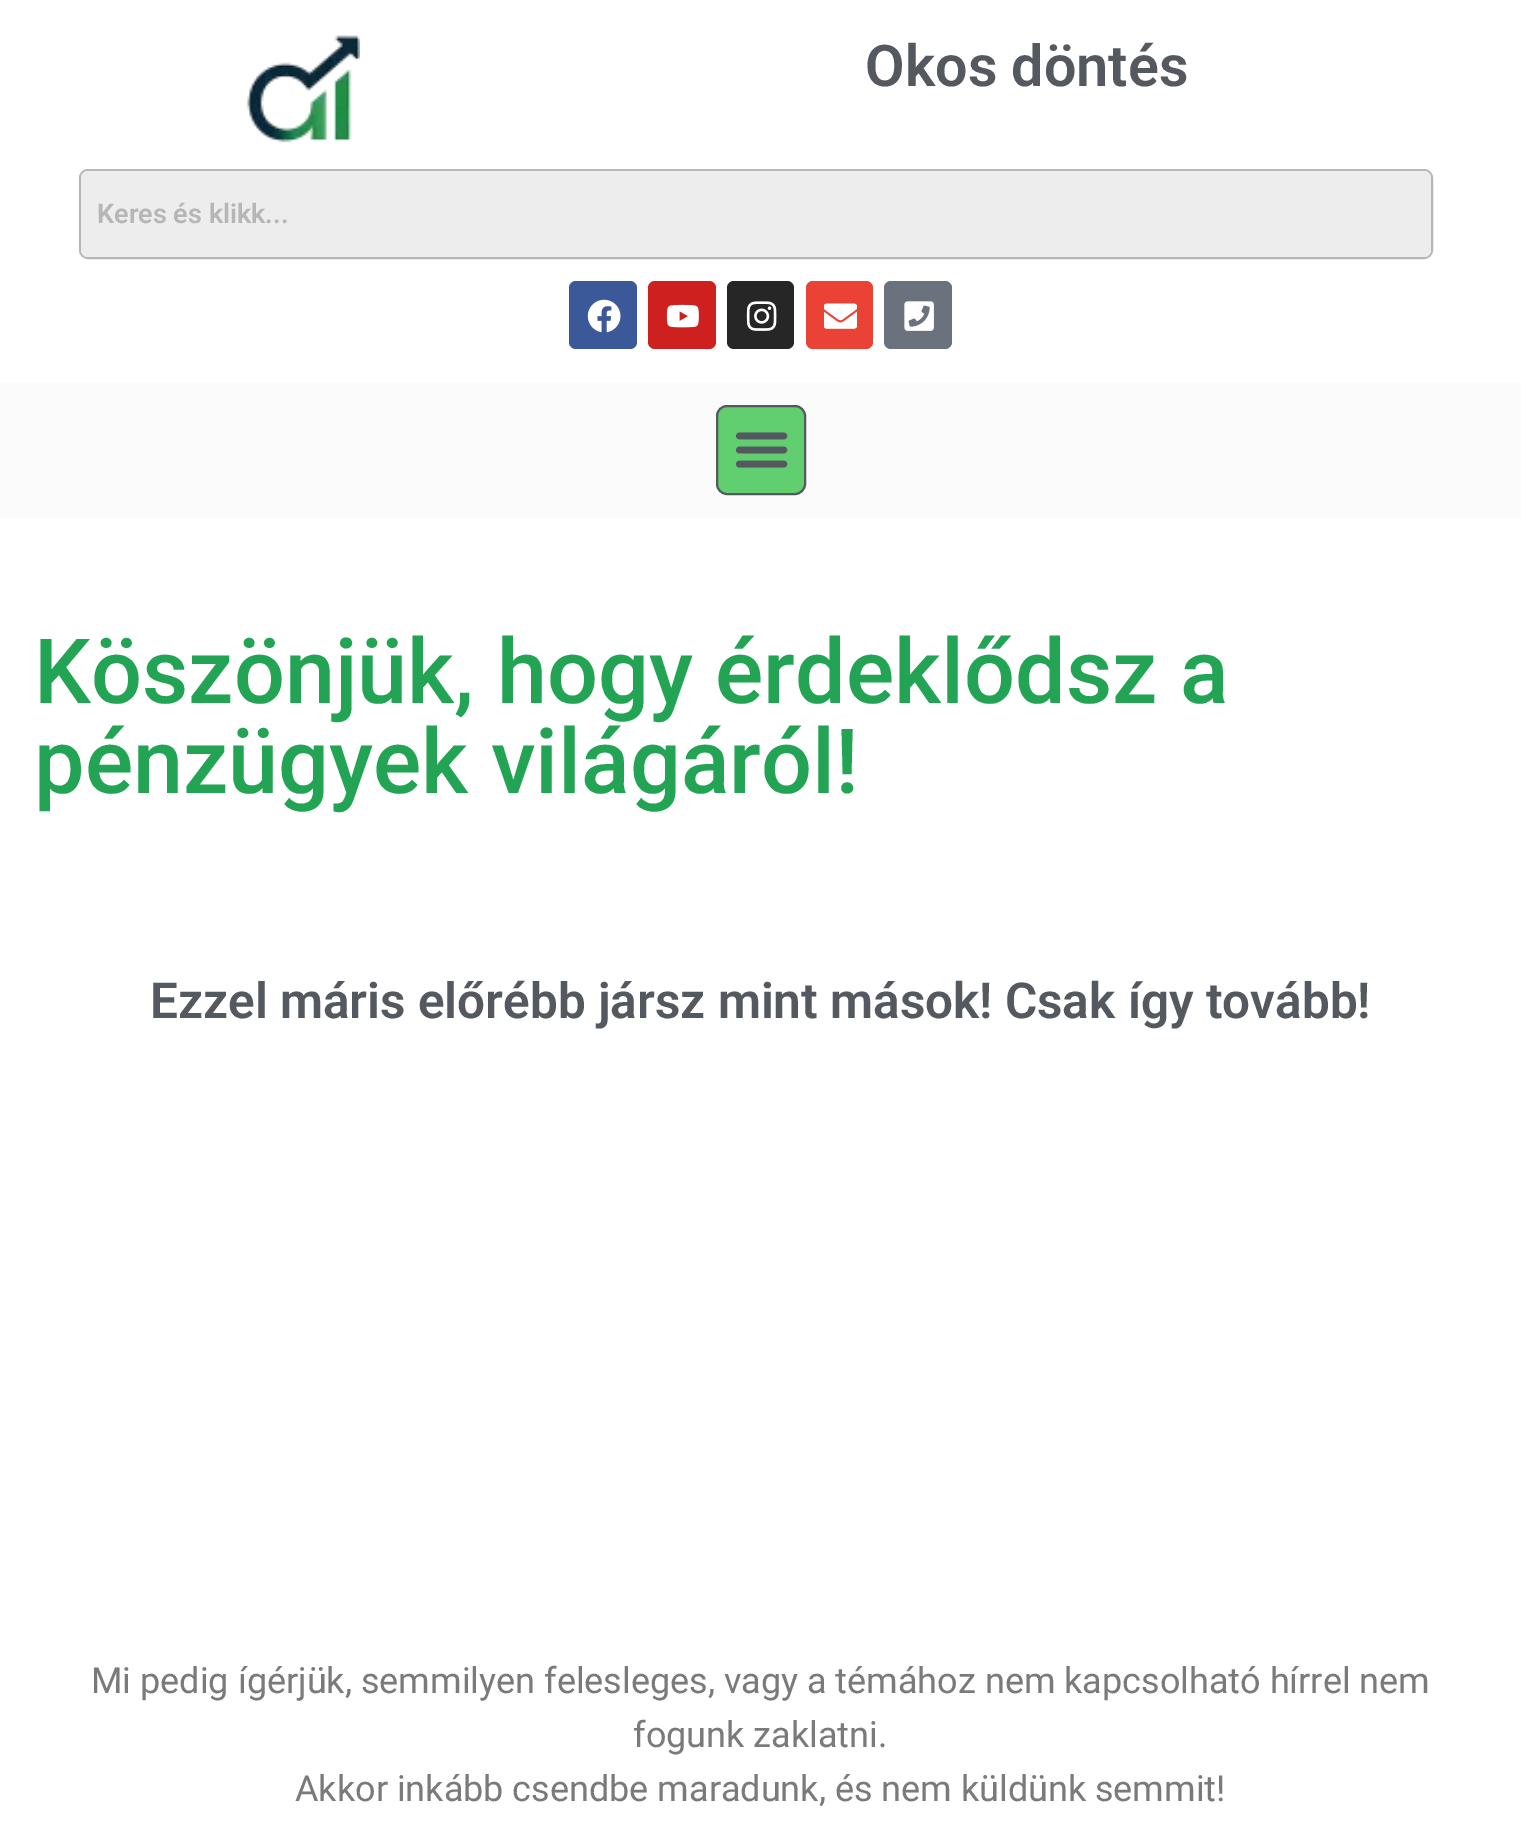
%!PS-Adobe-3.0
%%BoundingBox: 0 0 1521 1846
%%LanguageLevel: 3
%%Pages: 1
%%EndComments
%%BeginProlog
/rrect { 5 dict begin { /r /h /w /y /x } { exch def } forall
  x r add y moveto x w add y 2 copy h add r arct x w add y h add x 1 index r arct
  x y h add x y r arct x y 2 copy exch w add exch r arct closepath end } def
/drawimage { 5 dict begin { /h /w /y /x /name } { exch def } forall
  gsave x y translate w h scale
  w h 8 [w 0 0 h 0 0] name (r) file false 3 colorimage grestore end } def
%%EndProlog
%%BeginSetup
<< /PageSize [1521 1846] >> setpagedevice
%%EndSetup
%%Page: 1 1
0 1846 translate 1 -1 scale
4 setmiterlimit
1 setgray
0 0 1521 1846 rectfill
(images/1.raw) 247 35 113 108 drawimage
0.714 setgray
2 setlinewidth
80 170 1352 88 8 rrect stroke
0.929 setgray
81 171 1350 86 7 rrect fill
0.231 0.349 0.596 setrgbcolor
569 281 68 68 7 rrect fill
(images/2.raw) 587 299 34 34 drawimage
0.804 0.125 0.122 setrgbcolor
648 281 68 68 7 rrect fill
(images/3.raw) 666 304 33 24 drawimage
0.149 setgray
727 281 67 68 7 rrect fill
(images/4.raw) 746 301 31 30 drawimage
0.918 0.263 0.208 setrgbcolor
806 281 67 68 7 rrect fill
(images/5.raw) 824 303 33 26 drawimage
0.412 0.447 0.49 setrgbcolor
884 281 68 68 7 rrect fill
(images/6.raw) 904 301 30 30 drawimage
0.984 setgray
0 383 1521 135 rectfill
0.38 0.808 0.439 setrgbcolor
717 406 88 88 10 rrect gsave fill grestore
0.329 0.349 0.373 setrgbcolor
stroke
(images/7.raw) 735 432 53 36 drawimage
/Roboto-SemiBold [57.5 0 0 -57.5 0 0] selectfont
865 86 moveto (Okos döntés) show
/Roboto-SemiBold [27 0 0 -27 0 0] selectfont
0.714 setgray
97 223 moveto (Keres és klikk...) show
/Roboto-Medium [90 0 0 -90 0 0] selectfont
0.137 0.643 0.333 setrgbcolor
34 703 moveto (Köszönjük, hogy érdeklődsz a) show
34 793 moveto (pénzügyek világáról!) show
/Roboto-SemiBold [49.5 0 0 -49.5 0 0] selectfont
0.329 0.349 0.373 setrgbcolor
150 1018 moveto (Ezzel máris előrébb jársz mint mások! Csak így tovább!) show
/Roboto-Regular [36 0 0 -36 0 0] selectfont
0.478 setgray
91 1693 moveto (Mi pedig ígérjük, semmilyen felesleges, vagy a témához nem kapcsolható hírrel nem) show
633 1747 moveto (fogunk zaklatni.) show
295 1801 moveto (Akkor inkább csendbe maradunk, és nem küldünk semmit!) show
showpage
%%EOF
